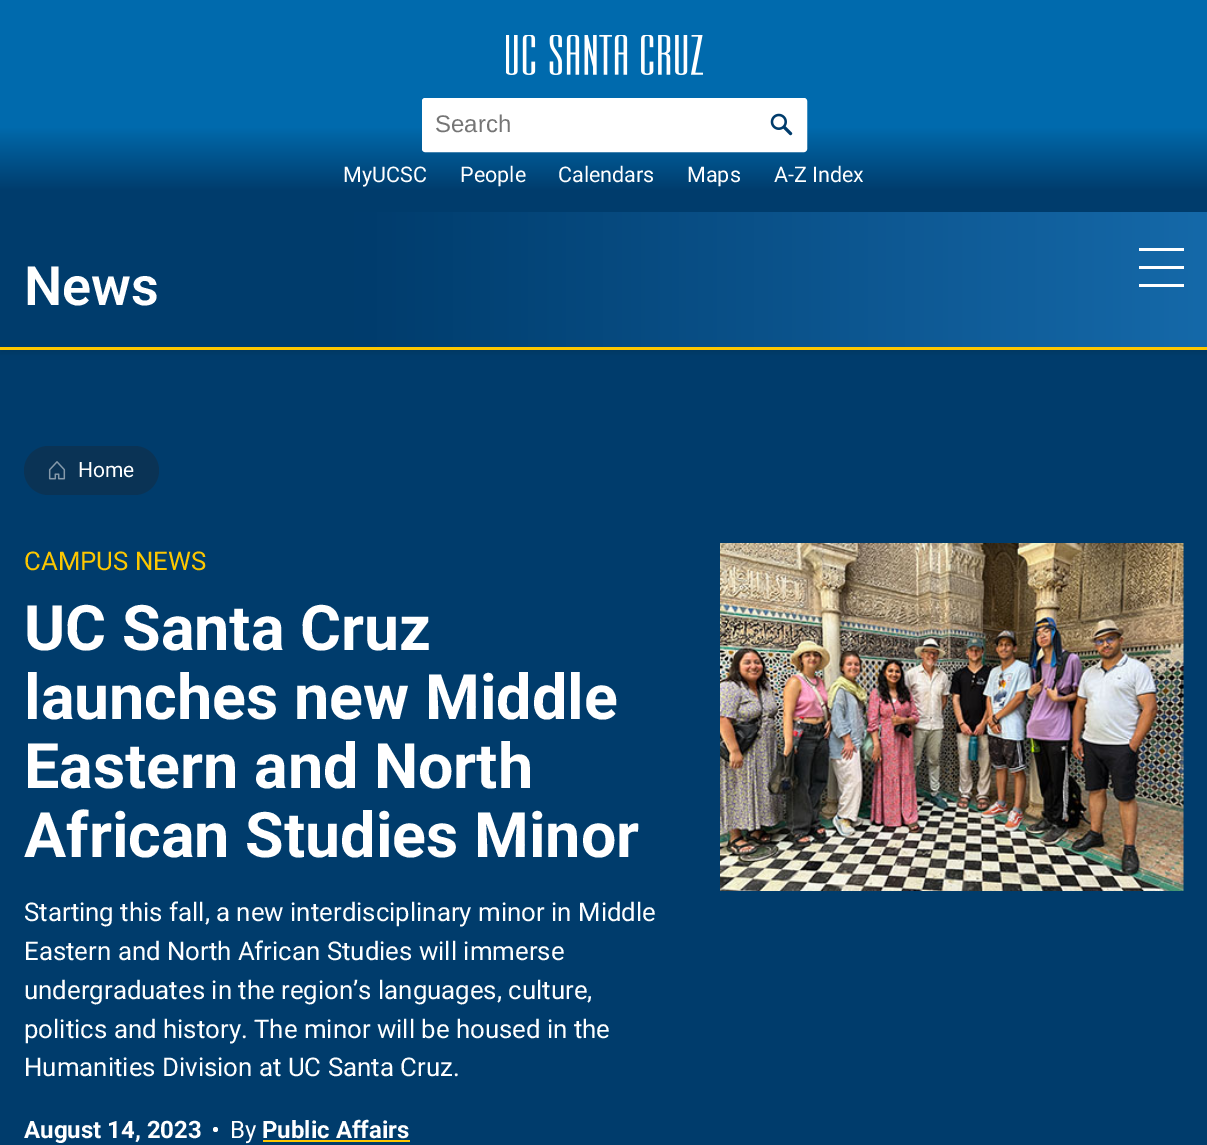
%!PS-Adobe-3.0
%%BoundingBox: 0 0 1207 1145
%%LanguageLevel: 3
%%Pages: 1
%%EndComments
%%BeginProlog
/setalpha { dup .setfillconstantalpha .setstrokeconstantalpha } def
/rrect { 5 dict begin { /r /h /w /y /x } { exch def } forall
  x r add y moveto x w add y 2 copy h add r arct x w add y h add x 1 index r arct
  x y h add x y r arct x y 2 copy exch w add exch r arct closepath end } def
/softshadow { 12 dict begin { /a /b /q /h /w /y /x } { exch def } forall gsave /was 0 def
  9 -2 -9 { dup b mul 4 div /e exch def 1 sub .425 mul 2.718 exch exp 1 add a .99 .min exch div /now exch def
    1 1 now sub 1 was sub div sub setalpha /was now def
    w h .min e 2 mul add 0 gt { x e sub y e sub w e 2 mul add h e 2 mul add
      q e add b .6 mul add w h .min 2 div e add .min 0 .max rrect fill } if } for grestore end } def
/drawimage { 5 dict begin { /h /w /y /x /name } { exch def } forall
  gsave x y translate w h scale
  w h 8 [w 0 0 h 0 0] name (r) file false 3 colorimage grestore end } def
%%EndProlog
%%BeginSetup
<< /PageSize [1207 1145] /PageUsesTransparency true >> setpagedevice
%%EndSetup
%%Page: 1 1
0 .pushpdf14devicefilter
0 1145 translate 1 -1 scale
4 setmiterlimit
1 setgray
0 0 1207 1145 rectfill
gsave newpath 0 0 moveto 1207 0 lineto 1207 212 lineto 0 212 lineto closepath clip newpath
<< /ShadingType 2 /ColorSpace /DeviceRGB /Coords [604 212 604 0] /Extend [true true] /Function << /FunctionType 3 /Domain [0 1] /Functions [<< /FunctionType 2 /Domain [0 1] /C0 [0 0.235 0.424] /C1 [0 0.235 0.424] /N 1 >> << /FunctionType 2 /Domain [0 1] /C0 [0 0.235 0.424] /C1 [0 0.416 0.678] /N 1 >> << /FunctionType 2 /Domain [0 1] /C0 [0 0.416 0.678] /C1 [0 0.416 0.678] /N 1 >>] /Bounds [0.1 0.4] /Encode [0 1 0 1 0 1] >> >> shfill grestore
(images/1.raw) 506 35 197 40 drawimage
423 99 383 52 2 rrect gsave fill grestore
2 setlinewidth
stroke
(images/2.raw) 770 113 23 23 drawimage
0 0.235 0.424 setrgbcolor
0 350 1207 795 rectfill
0 setgray
0 215 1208 138 0 3 0.1 softshadow
gsave newpath 0 212 moveto 1207 212 lineto 1207 347 lineto 0 347 lineto closepath clip newpath
<< /ShadingType 2 /ColorSpace /DeviceRGB /Coords [0 279 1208 279] /Extend [true true] /Function << /FunctionType 3 /Domain [0 1] /Functions [<< /FunctionType 2 /Domain [0 1] /C0 [0 0.235 0.424] /C1 [0 0.235 0.424] /N 1 >> << /FunctionType 2 /Domain [0 1] /C0 [0 0.235 0.424] /C1 [0.082 0.412 0.663] /N 1 >>] /Bounds [0.29] /Encode [0 1 0 1] >> >> shfill grestore
1 setgray
1139 248 45 3 rectfill
1139 266 45 3 rectfill
1139 284 45 3 rectfill
0.992 0.78 0 setrgbcolor
0 347 1207 3 rectfill
0.039 0.2 0.333 setrgbcolor
24 446 135 49 24.5 rrect fill
(images/3.raw) 48 461 18 19 drawimage
1 setgray
newpath 215.5 1129.5 2.5 0 360 arc closepath fill
0.992 0.78 0 setrgbcolor
263 1140 147 2 rectfill
(images/4.raw) 720 543 464 348 drawimage
/LiberationSans-Regular [24 0 0 -24 0 0] selectfont
0.459 setgray
435 132 moveto (Search) show
/Roboto-Regular [21.5 0 0 -21.5 0 0] selectfont
1 setgray
343 182 moveto (MyUCSC) show
460 182 moveto (People) show
558 182 moveto (Calendars) show
687 182 moveto (Maps) show
774 182 moveto (A-Z Index) show
/Roboto-SemiBold [54 0 0 -54 0 0] selectfont
24 305 moveto (News) show
/Roboto-Regular [21 0 0 -21 0 0] selectfont
78 477 moveto (Home) show
/Roboto-Regular [25.8 0 0 -25.8 0 0] selectfont
0.992 0.78 0 setrgbcolor
24 570 moveto (CAMPUS NEWS) show
/Roboto-Bold [62.75 0 0 -62.75 0 0] selectfont
1 setgray
24 650 moveto (UC Santa Cruz) show
24 719 moveto (launches new Middle) show
24 788 moveto (Eastern and North) show
24 857 moveto (African Studies Minor) show
/Roboto-Regular [25.8 0 0 -25.8 0 0] selectfont
24 921 moveto (Starting this fall, a new interdisciplinary minor in Middle) show
24 960 moveto (Eastern and North African Studies will immerse) show
24 999 moveto (undergraduates in the region’s languages, culture,) show
24 1038 moveto (politics and history. The minor will be housed in the) show
24 1076 moveto (Humanities Division at UC Santa Cruz.) show
/Roboto-Bold [24 0 0 -24 0 0] selectfont
24 1138 moveto (August 14, 2023) show
/Roboto-Regular [24 0 0 -24 0 0] selectfont
230 1138 moveto (By) show
/Roboto-Bold [24 0 0 -24 0 0] selectfont
262 1138 moveto (Public Affairs) show
.poppdf14devicefilter showpage
%%EOF
